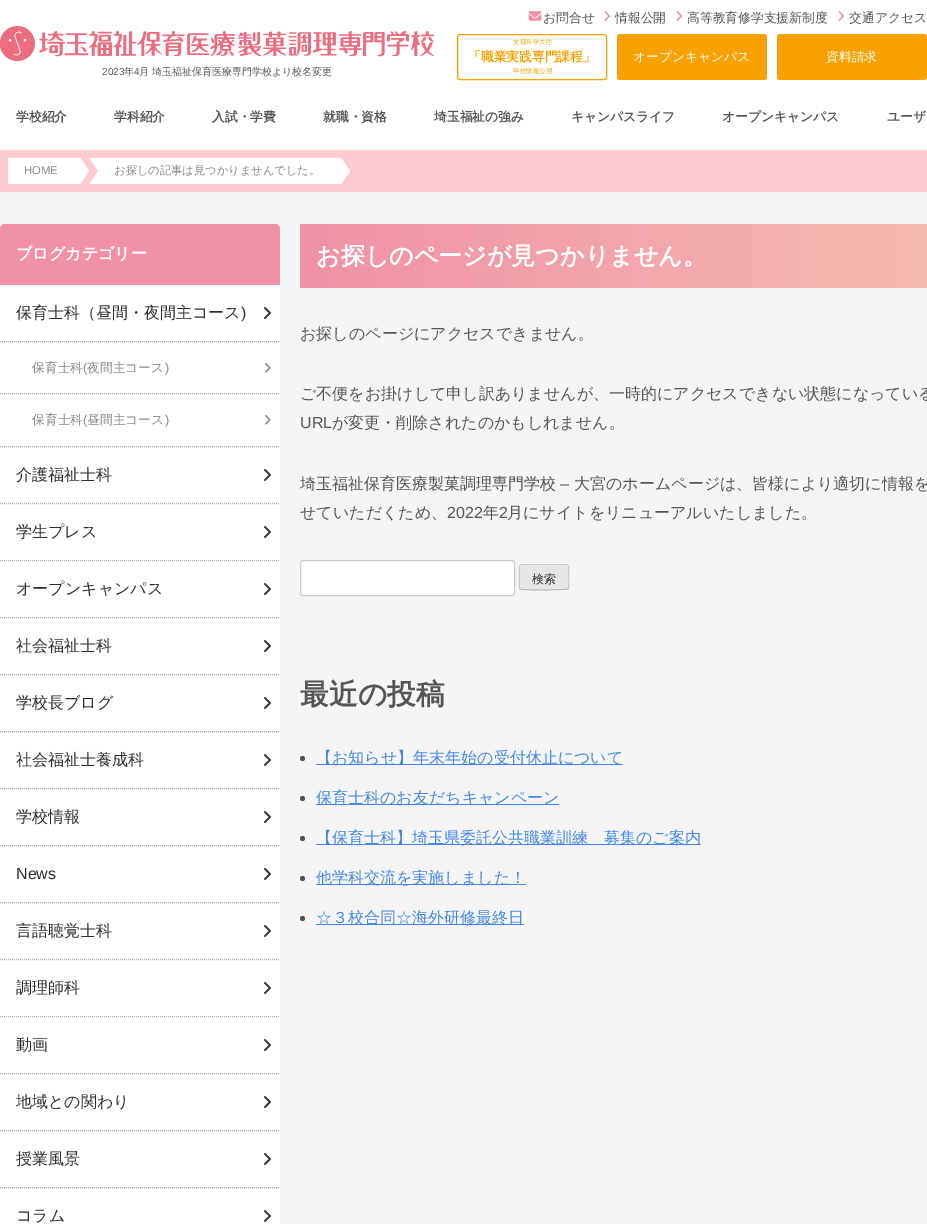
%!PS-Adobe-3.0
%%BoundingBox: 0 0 927 1224
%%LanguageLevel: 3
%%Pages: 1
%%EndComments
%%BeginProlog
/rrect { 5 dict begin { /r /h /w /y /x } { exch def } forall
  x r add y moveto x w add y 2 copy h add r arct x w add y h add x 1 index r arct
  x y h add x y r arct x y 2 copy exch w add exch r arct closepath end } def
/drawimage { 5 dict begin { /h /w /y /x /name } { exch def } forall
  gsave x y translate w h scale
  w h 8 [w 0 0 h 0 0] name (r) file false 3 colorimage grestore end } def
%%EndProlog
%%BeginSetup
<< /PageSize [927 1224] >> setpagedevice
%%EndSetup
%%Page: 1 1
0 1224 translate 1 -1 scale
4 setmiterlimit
0.961 setgray
0 0 927 1224 rectfill
1 setgray
0 0 927 150 rectfill
(images/1.raw) 0 26 434 36 drawimage
(images/2.raw) 528 11 14 10 drawimage
(images/3.raw) 604 11 7 10 drawimage
(images/3.raw) 676 11 7 10 drawimage
(images/3.raw) 838 11 7 10 drawimage
0.969 0.635 0 setrgbcolor
457.5 34.5 149 45 2.5 rrect stroke
617 34 150 46 3 rrect fill
777 34 150 46 3 rrect fill
1 0.796 0.827 setrgbcolor
0 150 927 42 rectfill
1 setgray
8 158 65 26 rectfill
gsave
8 158 919 26 rectclip
newpath 73 195 moveto 73 147 lineto 89 171 lineto closepath fill
grestore
98 158 236 26 rectfill
gsave
8 158 919 26 rectclip
newpath 82 147 moveto 98 147 lineto 98 171 lineto closepath 98 195 moveto 82 195 lineto 98 171 lineto closepath fill
newpath 334 195 moveto 334 147 lineto 350 171 lineto closepath fill
grestore
0.941 0.569 0.655 setrgbcolor
newpath 5 224 moveto 275 224 lineto 278 224 280 226 280 229 curveto 280 285 lineto 0 285 lineto 0 229 lineto 0 226 2 224 5 224 curveto closepath fill
1 setgray
0 285 280 939 rectfill
0.667 setgray
[1 1] 0 setdash
newpath 0 341.5 moveto 280 341.5 lineto stroke
(images/4.raw) 264 307 7 12 drawimage
newpath 0 393.5 moveto 280 393.5 lineto stroke
(images/5.raw) 265 363 6 10 drawimage
newpath 0 446.5 moveto 280 446.5 lineto stroke
(images/5.raw) 265 415 6 10 drawimage
newpath 0 503.5 moveto 280 503.5 lineto stroke
(images/4.raw) 264 469 7 12 drawimage
newpath 0 560.5 moveto 280 560.5 lineto stroke
(images/4.raw) 264 526 7 12 drawimage
newpath 0 617.5 moveto 280 617.5 lineto stroke
(images/4.raw) 264 583 7 12 drawimage
newpath 0 674.5 moveto 280 674.5 lineto stroke
(images/4.raw) 264 640 7 12 drawimage
newpath 0 731.5 moveto 280 731.5 lineto stroke
(images/4.raw) 264 697 7 12 drawimage
newpath 0 788.5 moveto 280 788.5 lineto stroke
(images/4.raw) 264 754 7 12 drawimage
newpath 0 845.5 moveto 280 845.5 lineto stroke
(images/4.raw) 264 811 7 12 drawimage
newpath 0 902.5 moveto 280 902.5 lineto stroke
(images/4.raw) 264 868 7 12 drawimage
newpath 0 959.5 moveto 280 959.5 lineto stroke
(images/4.raw) 264 925 7 12 drawimage
newpath 0 1016.5 moveto 280 1016.5 lineto stroke
(images/4.raw) 264 982 7 12 drawimage
newpath 0 1073.5 moveto 280 1073.5 lineto stroke
(images/4.raw) 264 1039 7 12 drawimage
newpath 0 1130.5 moveto 280 1130.5 lineto stroke
(images/4.raw) 264 1096 7 12 drawimage
newpath 0 1187.5 moveto 280 1187.5 lineto stroke
(images/4.raw) 264 1153 7 12 drawimage
(images/4.raw) 264 1210 7 12 drawimage
gsave newpath 300 224 moveto 927 224 lineto 927 288 lineto 300 288 lineto closepath clip newpath
<< /ShadingType 2 /ColorSpace /DeviceRGB /Coords [300 256 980 256] /Extend [true true] /Function << /FunctionType 2 /Domain [0 1] /C0 [0.941 0.569 0.655] /C1 [0.965 0.737 0.69] /N 1 >> >> shfill grestore
1 setgray
300.5 560.5 214 35 2.5 rrect gsave fill grestore
0.8 setgray
[] 0 setdash
stroke
0.902 setgray
519 564 50 26 3 rrect fill
0.953 setgray
newpath 522 566 moveto 566 566 lineto 567 566 568 567 568 568 curveto 568 563 563 565 559 565 curveto 529 565 lineto 525 565 520 563 520 568 curveto 520 567 521 566 522 566 curveto closepath fill
0.733 setgray
newpath 568 589 moveto 566.5 590 526 590 522 589.5 curveto 520 589 lineto stroke
0.8 setgray
newpath 520 589 moveto 518.5 587 519.5 579.5 519.5 577 curveto 519.5 564 517 564.5 529.5 564.5 curveto 558.5 564.5 lineto 571 564.5 568.5 564 568.5 577 curveto 568.5 579.5 569.5 587 568 589 curveto stroke
0.333 setgray
newpath 302.5 758.5 2.5 0 360 arc closepath fill
0.263 0.533 0.902 setrgbcolor
316 764 307 1 rectfill
0.333 setgray
newpath 302.5 798.5 2.5 0 360 arc closepath fill
0.263 0.533 0.902 setrgbcolor
316 804 243 1 rectfill
0.333 setgray
newpath 302.5 838.5 2.5 0 360 arc closepath fill
0.263 0.533 0.902 setrgbcolor
316 844 385 1 rectfill
0.333 setgray
newpath 302.5 878.5 2.5 0 360 arc closepath fill
0.263 0.533 0.902 setrgbcolor
316 884 210 1 rectfill
0.333 setgray
newpath 302.5 918.5 2.5 0 360 arc closepath fill
0.263 0.533 0.902 setrgbcolor
316 924 208 1 rectfill
/LiberationSans-Regular [10 0 0 -10 0 0] selectfont
0.333 setgray
102 75 moveto (2023) show
/WenQuanYiZenHei-Medium [10 0 0 -10 0 0] selectfont
124 75 moveto (年) show
/LiberationSans-Regular [10 0 0 -10 0 0] selectfont
134 75 moveto (4) show
/WenQuanYiZenHei-Medium [10 0 0 -10 0 0] selectfont
139 75 moveto (月 埼玉福祉保育医療専門学校より校名変更) show
/WenQuanYiZenHei-Medium [12.75 0 0 -12.75 0 0] selectfont
543 22 moveto (お問合せ) show
615 22 moveto (情報公開) show
687 22 moveto (高等教育修学支援新制度) show
849 22 moveto (交通アクセス) show
/WenQuanYiZenHei-Medium [6.5 0 0 -6.5 0 0] selectfont
0.969 0.635 0 setrgbcolor
513 44 moveto (文部科学大臣) show
/WenQuanYiZenHei-Bold [12.75 0 0 -12.75 0 0] selectfont
468 61 moveto (「職業実践専門課程」) show
/WenQuanYiZenHei-Medium [6.5 0 0 -6.5 0 0] selectfont
513 73 moveto (学校情報公開) show
/WenQuanYiZenHei-Medium [12.75 0 0 -12.75 0 0] selectfont
1 setgray
633 61 moveto (オープンキャンパス) show
826 61 moveto (資料請求) show
/WenQuanYiZenHei-Bold [12.75 0 0 -12.75 0 0] selectfont
0.333 setgray
16 121 moveto (学校紹介) show
114 121 moveto (学科紹介) show
212 121 moveto (入試・学費) show
323 121 moveto (就職・資格) show
434 121 moveto (埼玉福祉の強み) show
571 121 moveto (キャンパスライフ) show
722 121 moveto (オープンキャンパス) show
887 121 moveto (ユーザ) show
/LiberationSans-Regular [11.25 0 0 -11.25 0 0] selectfont
0.533 setgray
24 174 moveto (HOME) show
/WenQuanYiZenHei-Medium [11.25 0 0 -11.25 0 0] selectfont
114 174 moveto (お探しの記事は見つかりませんでした。) show
/WenQuanYiZenHei-Bold [16 0 0 -16 0 0] selectfont
1 setgray
16 259 moveto (ブログカテゴリー) show
/WenQuanYiZenHei-Medium [16 0 0 -16 0 0] selectfont
0.18 setgray
16 318 moveto (保育士科（昼間・夜間主コース) show
/LiberationSans-Regular [16 0 0 -16 0 0] selectfont
241 318 moveto (\)) show
/WenQuanYiZenHei-Medium [12.75 0 0 -12.75 0 0] selectfont
0.533 setgray
32 372 moveto (保育士科) show
/LiberationSans-Regular [12.75 0 0 -12.75 0 0] selectfont
83 372 moveto (\() show
/WenQuanYiZenHei-Medium [12.75 0 0 -12.75 0 0] selectfont
87 372 moveto (夜間主コース) show
/LiberationSans-Regular [12.75 0 0 -12.75 0 0] selectfont
165 372 moveto (\)) show
/WenQuanYiZenHei-Medium [12.75 0 0 -12.75 0 0] selectfont
32 424 moveto (保育士科) show
/LiberationSans-Regular [12.75 0 0 -12.75 0 0] selectfont
83 424 moveto (\() show
/WenQuanYiZenHei-Medium [12.75 0 0 -12.75 0 0] selectfont
87 424 moveto (昼間主コース) show
/LiberationSans-Regular [12.75 0 0 -12.75 0 0] selectfont
165 424 moveto (\)) show
/WenQuanYiZenHei-Medium [16 0 0 -16 0 0] selectfont
0.18 setgray
16 480 moveto (介護福祉士科) show
16 537 moveto (学生プレス) show
16 594 moveto (オープンキャンパス) show
16 651 moveto (社会福祉士科) show
16 708 moveto (学校長ブログ) show
16 765 moveto (社会福祉士養成科) show
16 822 moveto (学校情報) show
/LiberationSans-Regular [16 0 0 -16 0 0] selectfont
16 879 moveto (News) show
/WenQuanYiZenHei-Medium [16 0 0 -16 0 0] selectfont
16 936 moveto (言語聴覚士科) show
16 993 moveto (調理師科) show
16 1050 moveto (動画) show
16 1107 moveto (地域との関わり) show
16 1164 moveto (授業風景) show
16 1221 moveto (コラム) show
/WenQuanYiZenHei-Bold [24 0 0 -24 0 0] selectfont
1 setgray
316 264 moveto (お探しのページが見つかりません。) show
/WenQuanYiZenHei-Medium [16 0 0 -16 0 0] selectfont
0.333 setgray
300 339 moveto (お探しのページにアクセスできません。) show
300 399 moveto (ご不便をお掛けして申し訳ありませんが、一時的にアクセスできない状態になっている) show
/LiberationSans-Regular [16 0 0 -16 0 0] selectfont
300 428 moveto (URL) show
/WenQuanYiZenHei-Medium [16 0 0 -16 0 0] selectfont
332 428 moveto (が変更・削除されたのかもしれません。) show
300 489 moveto (埼玉福祉保育医療製菓調理専門学校) show
/LiberationSans-Regular [16 0 0 -16 0 0] selectfont
560 489 moveto (–) show
/WenQuanYiZenHei-Medium [16 0 0 -16 0 0] selectfont
574 489 moveto (大宮のホームページは、皆様により適切に情報を) show
300 518 moveto (せていただくため、) show
/LiberationSans-Regular [16 0 0 -16 0 0] selectfont
447 518 moveto (2022) show
/WenQuanYiZenHei-Medium [16 0 0 -16 0 0] selectfont
483 518 moveto (年) show
/LiberationSans-Regular [16 0 0 -16 0 0] selectfont
499 518 moveto (2) show
/WenQuanYiZenHei-Medium [16 0 0 -16 0 0] selectfont
507 518 moveto (月にサイトをリニューアルいたしました。) show
/WenQuanYiZenHei-Medium [12 0 0 -12 0 0] selectfont
0.18 setgray
532 583 moveto (検索) show
/WenQuanYiZenHei-Bold [28.75 0 0 -28.75 0 0] selectfont
0.333 setgray
300 704 moveto (最近の投稿) show
/WenQuanYiZenHei-Medium [16 0 0 -16 0 0] selectfont
0.263 0.533 0.902 setrgbcolor
316 763 moveto (【お知らせ】年末年始の受付休止について) show
316 803 moveto (保育士科のお友だちキャンペーン) show
316 843 moveto (【保育士科】埼玉県委託公共職業訓練　募集のご案内) show
316 883 moveto (他学科交流を実施しました！) show
316 923 moveto (☆３校合同☆海外研修最終日) show
showpage
%%EOF
